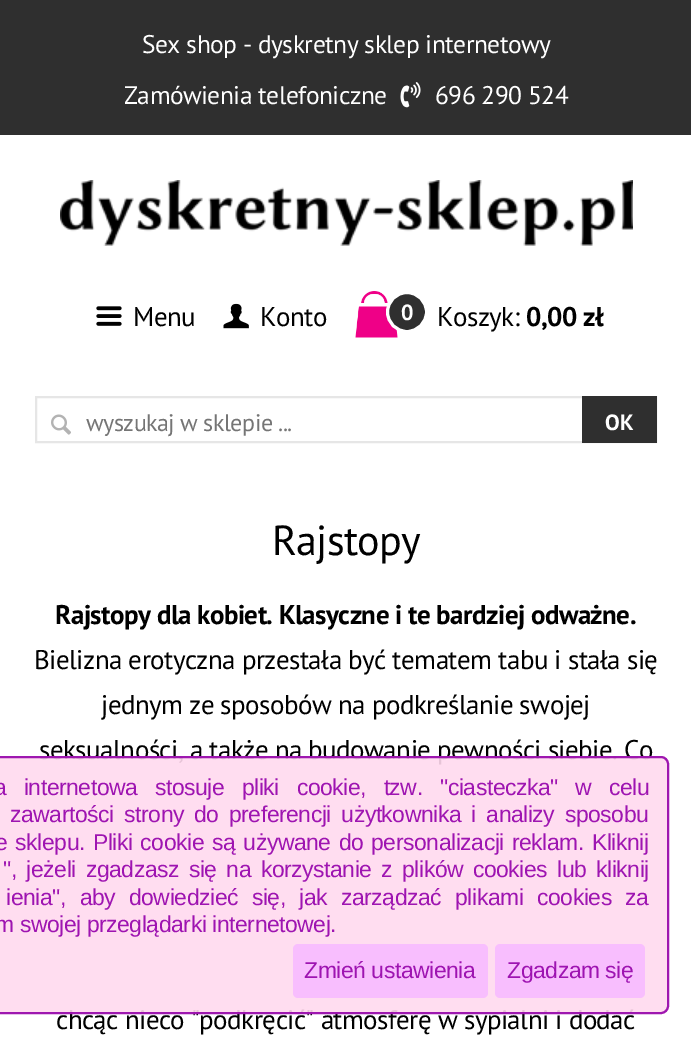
%!PS-Adobe-3.0
%%BoundingBox: 0 0 691 1059
%%LanguageLevel: 3
%%Pages: 1
%%EndComments
%%BeginProlog
/setalpha { dup .setfillconstantalpha .setstrokeconstantalpha } def
/rrect { 5 dict begin { /r /h /w /y /x } { exch def } forall
  x r add y moveto x w add y 2 copy h add r arct x w add y h add x 1 index r arct
  x y h add x y r arct x y 2 copy exch w add exch r arct closepath end } def
/drawimage { 5 dict begin { /h /w /y /x /name } { exch def } forall
  gsave x y translate w h scale
  w h 8 [w 0 0 h 0 0] name (r) file false 3 colorimage grestore end } def
%%EndProlog
%%BeginSetup
<< /PageSize [691 1059] /PageUsesTransparency true >> setpagedevice
%%EndSetup
%%Page: 1 1
0 .pushpdf14devicefilter
0 1059 translate 1 -1 scale
4 setmiterlimit
1 setgray
0 0 691 1059 rectfill
0.184 setgray
0 0 691 135 rectfill
(images/1.raw) 400 82 21 26 drawimage
(images/2.raw) 60 180 573 66 drawimage
(images/3.raw) 96 306 26 20 drawimage
(images/4.raw) 223 303 26 26 drawimage
(images/5.raw) 355 291 43 47 drawimage
newpath 407 312 19.5 0 360 arc closepath gsave fill grestore
1 setgray
3 setlinewidth
stroke
0.902 setgray
2 setlinewidth
36 397 620 45 rectstroke
(images/6.raw) 51 414 20 21 drawimage
0.184 setgray
582 396 75 47 rectfill
/PTSans-Regular [25.5 0 0 -25.5 0 0] selectfont
1 setgray
142 53 moveto -0.5 0 (Sex shop - dyskretny sklep internetowy) ashow
124 104 moveto -0.5 0 (Zamówienia telefoniczne) ashow
435 104 moveto -0.5 0 (696 290 524) ashow
/PTSans-Regular [27 0 0 -27 0 0] selectfont
0 setgray
133 326 moveto -0.55 0 (Menu) ashow
260 326 moveto -0.55 0 (Konto) ashow
/PTSans-Bold [22 0 0 -22 0 0] selectfont
1 setgray
401 320 moveto (0) show
/PTSans-Regular [27 0 0 -27 0 0] selectfont
0 setgray
437 326 moveto -0.55 0 (Koszyk:) ashow
/PTSans-Bold [27 0 0 -27 0 0] selectfont
526 326 moveto -0.55 0 (0,00 zł) ashow
/PTSans-Regular [24 0 0 -24 0 0] selectfont
0.459 setgray
86 431 moveto -0.5 0 (wyszukaj w sklepie ...) ashow
/PTSans-Bold [22 0 0 -22 0 0] selectfont
1 setgray
605 430 moveto (OK) show
/PTSans-Regular [42 0 0 -42 0 0] selectfont
0 setgray
272 555 moveto -0.75 0 (Rajstopy) ashow
/PTSans-Bold [27 0 0 -27 0 0] selectfont
55 624 moveto -0.55 0 (Rajstopy dla kobiet. Klasyczne i te bardziej odważne.) ashow
/PTSans-Regular [27 0 0 -27 0 0] selectfont
34 669 moveto -0.55 0 (Bielizna erotyczna przestała być tematem tabu i stała się) ashow
101 714 moveto -0.55 0 (jednym ze sposobów na podkreślanie swojej) ashow
39 759 moveto -0.55 0 (seksualności, a także na budowanie pewności siebie. Co) ashow
56 1029 moveto -0.55 0 (chcąc nieco "podkręcić" atmosferę w sypialni i dodać) ashow
0.9 setalpha
1 0.851 0.933 setrgbcolor
-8 756 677 258 8 rrect fill
0.58 0.004 0.663 setrgbcolor
-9 757 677 256 7 rrect stroke
/LiberationSans-Regular [22.95 0 0 -22.95 0 0] selectfont
1 setalpha
0.62 0.078 0.694 setrgbcolor
-6 795 moveto 11.5 0 32 -0.45 0 (a internetowa stosuje pliki cookie, tzw. "ciasteczka" w celu) awidthshow
10 822 moveto 4.25 0 32 -0.45 0 (zawartości strony do preferencji użytkownika i analizy sposobu) awidthshow
-5 850 moveto 2 0 32 -0.45 0 (e sklepu. Pliki cookie są używane do personalizacji reklam. Kliknij) awidthshow
3 877 moveto 3.75 0 32 -0.45 0 (", jeżeli zgadzasz się na korzystanie z plików cookies lub kliknij) awidthshow
6 905 moveto 7.75 0 32 -0.45 0 (ienia", aby dowiedzieć się, jak zarządzać plikami cookies za) awidthshow
-5 932 moveto -0.45 0 (m swojej przeglądarki internetowej.) ashow
0.9 setalpha
0.969 0.733 1 setrgbcolor
293 944 195 54 5 rrect fill
1 setalpha
0.62 0.078 0.694 setrgbcolor
304 978 moveto -0.45 0 (Zmień ustawienia) ashow
0.9 setalpha
0.969 0.733 1 setrgbcolor
495 944 150 54 5 rrect fill
1 setalpha
0.62 0.078 0.694 setrgbcolor
507 978 moveto -0.45 0 (Zgadzam się) ashow
.poppdf14devicefilter showpage
%%EOF
